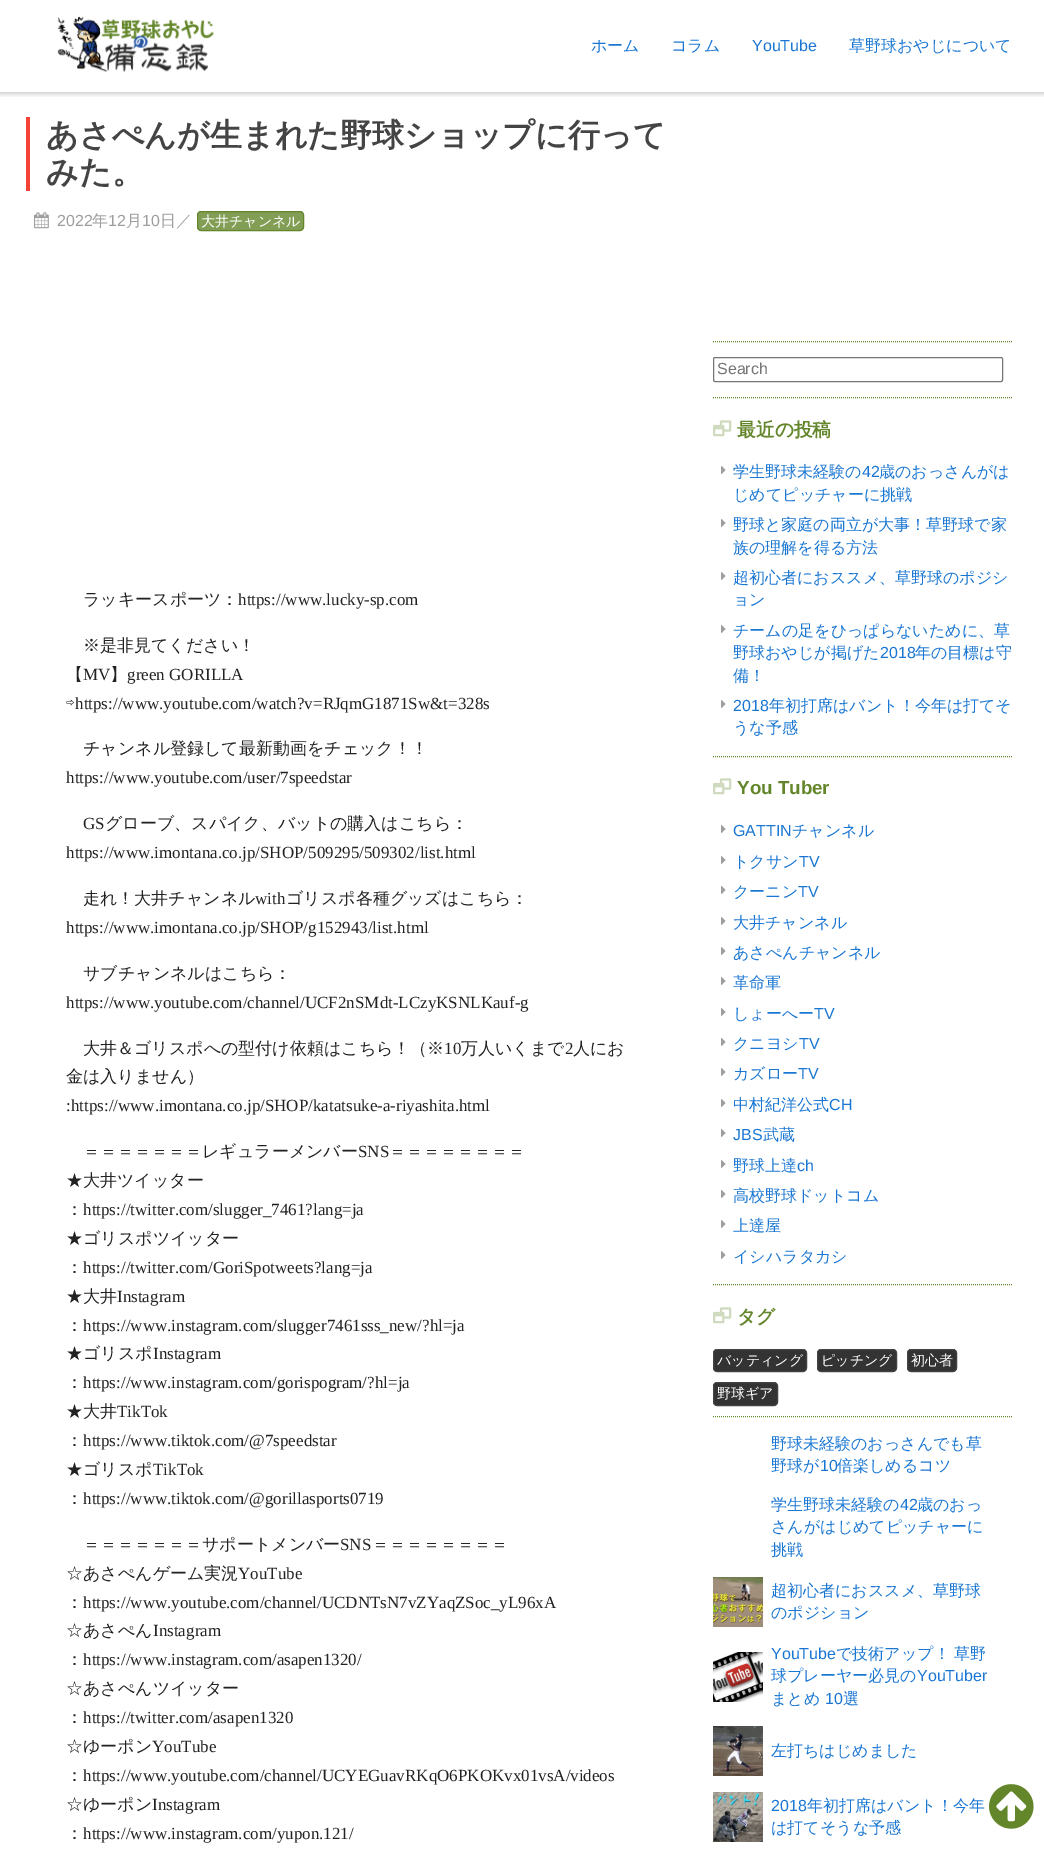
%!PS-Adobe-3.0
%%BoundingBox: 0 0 1044 1852
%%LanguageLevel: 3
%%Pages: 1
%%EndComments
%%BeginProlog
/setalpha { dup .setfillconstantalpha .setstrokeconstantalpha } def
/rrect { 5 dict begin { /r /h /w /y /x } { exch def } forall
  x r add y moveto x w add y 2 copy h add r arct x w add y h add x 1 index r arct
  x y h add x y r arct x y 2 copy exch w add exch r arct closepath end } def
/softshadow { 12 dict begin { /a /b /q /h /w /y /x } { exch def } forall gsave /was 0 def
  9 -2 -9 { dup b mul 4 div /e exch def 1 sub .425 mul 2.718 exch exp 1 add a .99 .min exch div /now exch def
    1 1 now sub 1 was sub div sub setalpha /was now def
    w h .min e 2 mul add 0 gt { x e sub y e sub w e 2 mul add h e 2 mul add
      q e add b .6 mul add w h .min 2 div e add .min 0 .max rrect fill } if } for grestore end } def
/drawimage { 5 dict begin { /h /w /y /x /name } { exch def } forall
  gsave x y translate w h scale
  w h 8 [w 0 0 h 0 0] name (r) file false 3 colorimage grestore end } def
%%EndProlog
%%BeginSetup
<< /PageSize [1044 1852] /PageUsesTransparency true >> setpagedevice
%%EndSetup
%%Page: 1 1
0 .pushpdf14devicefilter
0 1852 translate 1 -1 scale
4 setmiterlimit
1 setgray
0 0 1044 1852 rectfill
gsave
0 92 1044 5 rectclip
0 setgray
-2 -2 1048 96 0 2.5 0.2 softshadow
grestore
(images/1.raw) 57 16 158 56 drawimage
0.957 0.263 0.212 setrgbcolor
26 117 4 74 rectfill
(images/2.raw) 34 212 15 17 drawimage
0.51 0.62 0.333 setrgbcolor
197.5 211.5 106 19 3.5 rrect gsave fill grestore
0.388 0.525 0.165 setrgbcolor
stroke
[1 1] 0 setdash
newpath 713 341.5 moveto 1013 341.5 lineto stroke
newpath 713 397.5 moveto 1013 397.5 lineto stroke
0.463 setgray
[] 0 setdash
713.5 357.5 289 24 1.5 rrect stroke
0.388 0.525 0.165 setrgbcolor
[1 1] 0 setdash
newpath 713 756.5 moveto 1013 756.5 lineto stroke
(images/3.raw) 713 420 19 17 drawimage
(images/4.raw) 721 466 5 8 drawimage
(images/4.raw) 721 519 5 8 drawimage
(images/4.raw) 721 572 5 8 drawimage
(images/4.raw) 721 625 5 8 drawimage
(images/4.raw) 721 700 5 8 drawimage
newpath 713 1284.5 moveto 1013 1284.5 lineto stroke
(images/3.raw) 713 778 19 17 drawimage
(images/4.raw) 721 825 5 8 drawimage
(images/4.raw) 721 856 5 8 drawimage
(images/4.raw) 721 886 5 8 drawimage
(images/4.raw) 721 917 5 8 drawimage
(images/4.raw) 721 947 5 8 drawimage
(images/4.raw) 721 977 5 8 drawimage
(images/4.raw) 721 1008 5 8 drawimage
(images/4.raw) 721 1038 5 8 drawimage
(images/4.raw) 721 1068 5 8 drawimage
(images/4.raw) 721 1099 5 8 drawimage
(images/4.raw) 721 1129 5 8 drawimage
(images/4.raw) 721 1160 5 8 drawimage
(images/4.raw) 721 1190 5 8 drawimage
(images/4.raw) 721 1220 5 8 drawimage
(images/4.raw) 721 1251 5 8 drawimage
newpath 713 1416.5 moveto 1013 1416.5 lineto stroke
(images/3.raw) 713 1307 19 17 drawimage
0.2 setgray
713.5 1349.5 93 22 3.5 rrect gsave fill grestore
0.267 setgray
[] 0 setdash
stroke
0.2 setgray
817.5 1349.5 79 22 3.5 rrect gsave fill grestore
0.267 setgray
stroke
0.2 setgray
907.5 1349.5 49 22 3.5 rrect gsave fill grestore
0.267 setgray
stroke
0.2 setgray
713.5 1382.5 64 23 3.5 rrect gsave fill grestore
0.267 setgray
stroke
(images/5.raw) 713 1577 50 50 drawimage
(images/6.raw) 713 1652 50 50 drawimage
(images/7.raw) 713 1726 50 50 drawimage
(images/8.raw) 713 1792 50 50 drawimage
(images/9.raw) 989 1784 45 45 drawimage
/WenQuanYiZenHei-Medium [16 0 0 -16 0 0] selectfont
0.098 0.463 0.824 setrgbcolor
591 51 moveto (ホーム) show
671 51 moveto (コラム) show
/LiberationSans-Regular [16 0 0 -16 0 0] selectfont
752 51 moveto (YouTube) show
/WenQuanYiZenHei-Medium [16 0 0 -16 0 0] selectfont
849 51 moveto (草野球おやじについて) show
/WenQuanYiZenHei-Bold [32 0 0 -32 0 0] selectfont
0.267 setgray
46 146 moveto (あさぺんが生まれた野球ショップに行って) show
46 183 moveto (みた。) show
/LiberationSans-Regular [16 0 0 -16 0 0] selectfont
0.62 setgray
57 226 moveto (2022) show
/WenQuanYiZenHei-Medium [16 0 0 -16 0 0] selectfont
92 226 moveto (年) show
/LiberationSans-Regular [16 0 0 -16 0 0] selectfont
108 226 moveto (12) show
/WenQuanYiZenHei-Medium [16 0 0 -16 0 0] selectfont
126 226 moveto (月) show
/LiberationSans-Regular [16 0 0 -16 0 0] selectfont
142 226 moveto (10) show
/WenQuanYiZenHei-Medium [16 0 0 -16 0 0] selectfont
160 226 moveto (日／) show
/WenQuanYiZenHei-Medium [14 0 0 -14 0 0] selectfont
1 setgray
201 226 moveto (大井チャンネル) show
/WenQuanYiZenHei-Medium [17 0 0 -17 0 0] selectfont
0.133 setgray
83 605 moveto (ラッキースポーツ：) show
/LiberationSerif-Regular [17 0 0 -17 0 0] selectfont
238 605 moveto (https://www.lucky-sp.com) show
/WenQuanYiZenHei-Medium [17 0 0 -17 0 0] selectfont
83 651 moveto (※是非見てください！) show
66 680 moveto (【) show
/LiberationSerif-Regular [17 0 0 -17 0 0] selectfont
83 680 moveto (MV) show
/WenQuanYiZenHei-Medium [17 0 0 -17 0 0] selectfont
110 680 moveto (】) show
/LiberationSerif-Regular [17 0 0 -17 0 0] selectfont
127 680 moveto (green GORILLA) show
/IPAPGothic-Regular [17 0 0 -17 0 0] selectfont
66 709 moveto (⇨) show
/LiberationSerif-Regular [17 0 0 -17 0 0] selectfont
75 709 moveto (https://www.youtube.com/watch?v=RJqmG1871Sw&t=328s) show
/WenQuanYiZenHei-Medium [17 0 0 -17 0 0] selectfont
83 754 moveto (チャンネル登録して最新動画をチェック！！) show
/LiberationSerif-Regular [17 0 0 -17 0 0] selectfont
66 783 moveto (https://www.youtube.com/user/7speedstar) show
83 829 moveto (GS) show
/WenQuanYiZenHei-Medium [17 0 0 -17 0 0] selectfont
105 829 moveto (グローブ、スパイク、バットの購入はこちら：) show
/LiberationSerif-Regular [17 0 0 -17 0 0] selectfont
66 858 moveto (https://www.imontana.co.jp/SHOP/509295/509302/list.html) show
/WenQuanYiZenHei-Medium [17 0 0 -17 0 0] selectfont
83 904 moveto (走れ！大井チャンネル) show
/LiberationSerif-Regular [17 0 0 -17 0 0] selectfont
255 904 moveto (with) show
/WenQuanYiZenHei-Medium [17 0 0 -17 0 0] selectfont
286 904 moveto (ゴリスポ各種グッズはこちら：) show
/LiberationSerif-Regular [17 0 0 -17 0 0] selectfont
66 933 moveto (https://www.imontana.co.jp/SHOP/g152943/list.html) show
/WenQuanYiZenHei-Medium [17 0 0 -17 0 0] selectfont
83 979 moveto (サブチャンネルはこちら：) show
/LiberationSerif-Regular [17 0 0 -17 0 0] selectfont
66 1008 moveto (https://www.youtube.com/channel/UCF2nSMdt-LCzyKSNLKauf-g) show
/WenQuanYiZenHei-Medium [17 0 0 -17 0 0] selectfont
83 1054 moveto (大井＆ゴリスポへの型付け依頼はこちら！（※) show
/LiberationSerif-Regular [17 0 0 -17 0 0] selectfont
444 1054 moveto (10) show
/WenQuanYiZenHei-Medium [17 0 0 -17 0 0] selectfont
461 1054 moveto (万人いくまで) show
/LiberationSerif-Regular [17 0 0 -17 0 0] selectfont
565 1054 moveto (2) show
/WenQuanYiZenHei-Medium [17 0 0 -17 0 0] selectfont
573 1054 moveto (人にお) show
66 1082 moveto (金は入りません）) show
/LiberationSerif-Regular [17 0 0 -17 0 0] selectfont
66 1111 moveto (:https://www.imontana.co.jp/SHOP/katatsuke-a-riyashita.html) show
/WenQuanYiZenHei-Medium [17 0 0 -17 0 0] selectfont
83 1157 moveto (＝＝＝＝＝＝＝レギュラーメンバー) show
/LiberationSerif-Regular [17 0 0 -17 0 0] selectfont
358 1157 moveto (SNS) show
/WenQuanYiZenHei-Medium [17 0 0 -17 0 0] selectfont
389 1157 moveto (＝＝＝＝＝＝＝＝) show
66 1186 moveto (★大井ツイッター) show
66 1215 moveto (：) show
/LiberationSerif-Regular [17 0 0 -17 0 0] selectfont
83 1215 moveto (https://twitter.com/slugger_7461?lang=ja) show
/WenQuanYiZenHei-Medium [17 0 0 -17 0 0] selectfont
66 1244 moveto (★ゴリスポツイッター) show
66 1273 moveto (：) show
/LiberationSerif-Regular [17 0 0 -17 0 0] selectfont
83 1273 moveto (https://twitter.com/GoriSpotweets?lang=ja) show
/WenQuanYiZenHei-Medium [17 0 0 -17 0 0] selectfont
66 1302 moveto (★大井) show
/LiberationSerif-Regular [17 0 0 -17 0 0] selectfont
117 1302 moveto (Instagram) show
/WenQuanYiZenHei-Medium [17 0 0 -17 0 0] selectfont
66 1331 moveto (：) show
/LiberationSerif-Regular [17 0 0 -17 0 0] selectfont
83 1331 moveto (https://www.instagram.com/slugger7461sss_new/?hl=ja) show
/WenQuanYiZenHei-Medium [17 0 0 -17 0 0] selectfont
66 1359 moveto (★ゴリスポ) show
/LiberationSerif-Regular [17 0 0 -17 0 0] selectfont
153 1359 moveto (Instagram) show
/WenQuanYiZenHei-Medium [17 0 0 -17 0 0] selectfont
66 1388 moveto (：) show
/LiberationSerif-Regular [17 0 0 -17 0 0] selectfont
83 1388 moveto (https://www.instagram.com/gorispogram/?hl=ja) show
/WenQuanYiZenHei-Medium [17 0 0 -17 0 0] selectfont
66 1417 moveto (★大井) show
/LiberationSerif-Regular [17 0 0 -17 0 0] selectfont
117 1417 moveto (TikTok) show
/WenQuanYiZenHei-Medium [17 0 0 -17 0 0] selectfont
66 1446 moveto (：) show
/LiberationSerif-Regular [17 0 0 -17 0 0] selectfont
83 1446 moveto (https://www.tiktok.com/@7speedstar) show
/WenQuanYiZenHei-Medium [17 0 0 -17 0 0] selectfont
66 1475 moveto (★ゴリスポ) show
/LiberationSerif-Regular [17 0 0 -17 0 0] selectfont
153 1475 moveto (TikTok) show
/WenQuanYiZenHei-Medium [17 0 0 -17 0 0] selectfont
66 1504 moveto (：) show
/LiberationSerif-Regular [17 0 0 -17 0 0] selectfont
83 1504 moveto (https://www.tiktok.com/@gorillasports0719) show
/WenQuanYiZenHei-Medium [17 0 0 -17 0 0] selectfont
83 1550 moveto (＝＝＝＝＝＝＝サポートメンバー) show
/LiberationSerif-Regular [17 0 0 -17 0 0] selectfont
340 1550 moveto (SNS) show
/WenQuanYiZenHei-Medium [17 0 0 -17 0 0] selectfont
372 1550 moveto (＝＝＝＝＝＝＝＝) show
66 1579 moveto (☆あさぺんゲーム実況) show
/LiberationSerif-Regular [17 0 0 -17 0 0] selectfont
238 1579 moveto (YouTube) show
/WenQuanYiZenHei-Medium [17 0 0 -17 0 0] selectfont
66 1608 moveto (：) show
/LiberationSerif-Regular [17 0 0 -17 0 0] selectfont
83 1608 moveto (https://www.youtube.com/channel/UCDNTsN7vZYaqZSoc_yL96xA) show
/WenQuanYiZenHei-Medium [17 0 0 -17 0 0] selectfont
66 1636 moveto (☆あさぺん) show
/LiberationSerif-Regular [17 0 0 -17 0 0] selectfont
153 1636 moveto (Instagram) show
/WenQuanYiZenHei-Medium [17 0 0 -17 0 0] selectfont
66 1665 moveto (：) show
/LiberationSerif-Regular [17 0 0 -17 0 0] selectfont
83 1665 moveto (https://www.instagram.com/asapen1320/) show
/WenQuanYiZenHei-Medium [17 0 0 -17 0 0] selectfont
66 1694 moveto (☆あさぺんツイッター) show
66 1723 moveto (：) show
/LiberationSerif-Regular [17 0 0 -17 0 0] selectfont
83 1723 moveto (https://twitter.com/asapen1320) show
/WenQuanYiZenHei-Medium [17 0 0 -17 0 0] selectfont
66 1752 moveto (☆ゆーポン) show
/LiberationSerif-Regular [17 0 0 -17 0 0] selectfont
152 1752 moveto (YouTube) show
/WenQuanYiZenHei-Medium [17 0 0 -17 0 0] selectfont
66 1781 moveto (：) show
/LiberationSerif-Regular [17 0 0 -17 0 0] selectfont
83 1781 moveto (https://www.youtube.com/channel/UCYEGuavRKqO6PKOKvx01vsA/videos) show
/WenQuanYiZenHei-Medium [17 0 0 -17 0 0] selectfont
66 1810 moveto (☆ゆーポン) show
/LiberationSerif-Regular [17 0 0 -17 0 0] selectfont
152 1810 moveto (Instagram) show
/WenQuanYiZenHei-Medium [17 0 0 -17 0 0] selectfont
66 1839 moveto (：) show
/LiberationSerif-Regular [17 0 0 -17 0 0] selectfont
83 1839 moveto (https://www.instagram.com/yupon.121/) show
/LiberationSans-Regular [16 0 0 -16 0 0] selectfont
0.459 setgray
717 374 moveto (Search) show
/WenQuanYiZenHei-Bold [18.75 0 0 -18.75 0 0] selectfont
0.388 0.525 0.165 setrgbcolor
737 436 moveto (最近の投稿) show
/WenQuanYiZenHei-Medium [16 0 0 -16 0 0] selectfont
0.098 0.463 0.824 setrgbcolor
733 477 moveto (学生野球未経験の) show
/LiberationSans-Regular [16 0 0 -16 0 0] selectfont
862 477 moveto (42) show
/WenQuanYiZenHei-Medium [16 0 0 -16 0 0] selectfont
879 477 moveto (歳のおっさんがは) show
733 500 moveto (じめてピッチャーに挑戦) show
733 530 moveto (野球と家庭の両立が大事！草野球で家) show
733 553 moveto (族の理解を得る方法) show
733 583 moveto (超初心者におススメ、草野球のポジシ) show
733 605 moveto (ョン) show
733 636 moveto (チームの足をひっぱらないために、草) show
733 658 moveto (野球おやじが掲げた) show
/LiberationSans-Regular [16 0 0 -16 0 0] selectfont
880 658 moveto (2018) show
/WenQuanYiZenHei-Medium [16 0 0 -16 0 0] selectfont
915 658 moveto (年の目標は守) show
733 681 moveto (備！) show
/LiberationSans-Regular [16 0 0 -16 0 0] selectfont
733 711 moveto (2018) show
/WenQuanYiZenHei-Medium [16 0 0 -16 0 0] selectfont
769 711 moveto (年初打席はバント！今年は打てそ) show
733 733 moveto (うな予感) show
/LiberationSans-Bold [18.75 0 0 -18.75 0 0] selectfont
0.388 0.525 0.165 setrgbcolor
737 794 moveto (You Tuber) show
/LiberationSans-Regular [16 0 0 -16 0 0] selectfont
0.098 0.463 0.824 setrgbcolor
733 836 moveto (GATTIN) show
/WenQuanYiZenHei-Medium [16 0 0 -16 0 0] selectfont
792 836 moveto (チャンネル) show
733 867 moveto (トクサン) show
/LiberationSans-Regular [16 0 0 -16 0 0] selectfont
799 867 moveto (TV) show
/WenQuanYiZenHei-Medium [16 0 0 -16 0 0] selectfont
733 897 moveto (クーニン) show
/LiberationSans-Regular [16 0 0 -16 0 0] selectfont
798 897 moveto (TV) show
/WenQuanYiZenHei-Medium [16 0 0 -16 0 0] selectfont
733 928 moveto (大井チャンネル) show
733 958 moveto (あさぺんチャンネル) show
733 988 moveto (革命軍) show
733 1019 moveto (しょーへー) show
/LiberationSans-Regular [16 0 0 -16 0 0] selectfont
814 1019 moveto (TV) show
/WenQuanYiZenHei-Medium [16 0 0 -16 0 0] selectfont
733 1049 moveto (クニヨシ) show
/LiberationSans-Regular [16 0 0 -16 0 0] selectfont
799 1049 moveto (TV) show
/WenQuanYiZenHei-Medium [16 0 0 -16 0 0] selectfont
733 1079 moveto (カズロー) show
/LiberationSans-Regular [16 0 0 -16 0 0] selectfont
798 1079 moveto (TV) show
/WenQuanYiZenHei-Medium [16 0 0 -16 0 0] selectfont
733 1110 moveto (中村紀洋公式) show
/LiberationSans-Regular [16 0 0 -16 0 0] selectfont
829 1110 moveto (CH) show
733 1140 moveto (JBS) show
/WenQuanYiZenHei-Medium [16 0 0 -16 0 0] selectfont
763 1140 moveto (武蔵) show
733 1171 moveto (野球上達) show
/LiberationSans-Regular [16 0 0 -16 0 0] selectfont
797 1171 moveto (ch) show
/WenQuanYiZenHei-Medium [16 0 0 -16 0 0] selectfont
733 1201 moveto (高校野球ドットコム) show
733 1231 moveto (上達屋) show
733 1262 moveto (イシハラタカシ) show
/WenQuanYiZenHei-Bold [18.75 0 0 -18.75 0 0] selectfont
0.388 0.525 0.165 setrgbcolor
737 1323 moveto (タグ) show
/WenQuanYiZenHei-Medium [14 0 0 -14 0 0] selectfont
1 setgray
717 1365 moveto (バッティング) show
821 1365 moveto (ピッチング) show
911 1365 moveto (初心者) show
717 1398 moveto (野球ギア) show
/WenQuanYiZenHei-Medium [16 0 0 -16 0 0] selectfont
0.098 0.463 0.824 setrgbcolor
771 1449 moveto (野球未経験のおっさんでも草) show
771 1471 moveto (野球が) show
/LiberationSans-Regular [16 0 0 -16 0 0] selectfont
820 1471 moveto (10) show
/WenQuanYiZenHei-Medium [16 0 0 -16 0 0] selectfont
837 1471 moveto (倍楽しめるコツ) show
771 1510 moveto (学生野球未経験の) show
/LiberationSans-Regular [16 0 0 -16 0 0] selectfont
900 1510 moveto (42) show
/WenQuanYiZenHei-Medium [16 0 0 -16 0 0] selectfont
917 1510 moveto (歳のおっ) show
771 1532 moveto (さんがはじめてピッチャーに) show
771 1555 moveto (挑戦) show
771 1596 moveto (超初心者におススメ、草野球) show
771 1618 moveto (のポジション) show
/LiberationSans-Regular [16 0 0 -16 0 0] selectfont
771 1659 moveto (YouTube) show
/WenQuanYiZenHei-Medium [16 0 0 -16 0 0] selectfont
836 1659 moveto (で技術アップ！ 草野) show
771 1681 moveto (球プレーヤー必見の) show
/LiberationSans-Regular [16 0 0 -16 0 0] selectfont
917 1681 moveto (YouTuber) show
/WenQuanYiZenHei-Medium [16 0 0 -16 0 0] selectfont
771 1704 moveto (まとめ) show
/LiberationSans-Regular [16 0 0 -16 0 0] selectfont
825 1704 moveto (10) show
/WenQuanYiZenHei-Medium [16 0 0 -16 0 0] selectfont
843 1704 moveto (選) show
771 1756 moveto (左打ちはじめました) show
/LiberationSans-Regular [16 0 0 -16 0 0] selectfont
771 1811 moveto (2018) show
/WenQuanYiZenHei-Medium [16 0 0 -16 0 0] selectfont
807 1811 moveto (年初打席はバント！今年) show
771 1833 moveto (は打てそうな予感) show
.poppdf14devicefilter showpage
%%EOF
